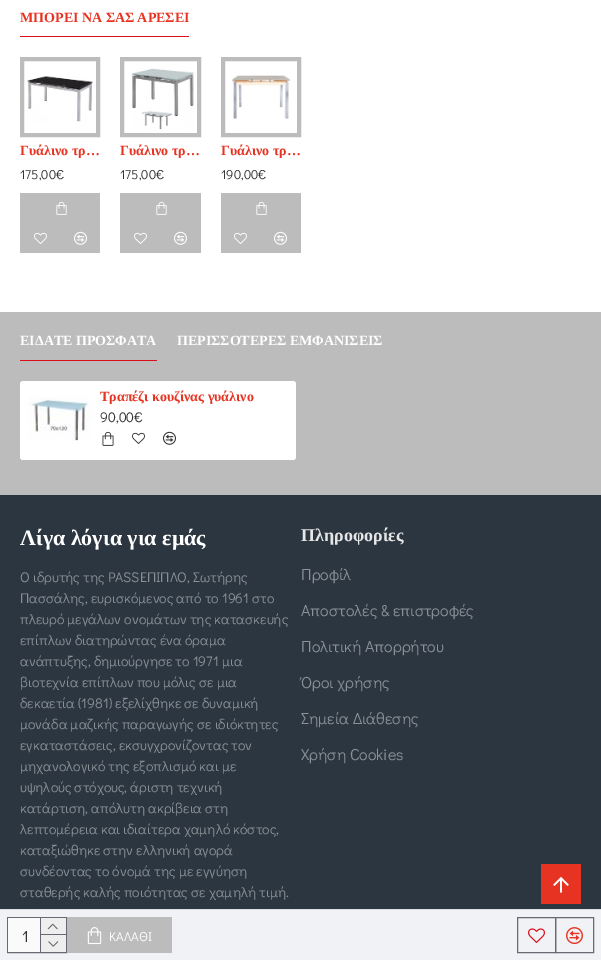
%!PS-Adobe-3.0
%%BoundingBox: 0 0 601 960
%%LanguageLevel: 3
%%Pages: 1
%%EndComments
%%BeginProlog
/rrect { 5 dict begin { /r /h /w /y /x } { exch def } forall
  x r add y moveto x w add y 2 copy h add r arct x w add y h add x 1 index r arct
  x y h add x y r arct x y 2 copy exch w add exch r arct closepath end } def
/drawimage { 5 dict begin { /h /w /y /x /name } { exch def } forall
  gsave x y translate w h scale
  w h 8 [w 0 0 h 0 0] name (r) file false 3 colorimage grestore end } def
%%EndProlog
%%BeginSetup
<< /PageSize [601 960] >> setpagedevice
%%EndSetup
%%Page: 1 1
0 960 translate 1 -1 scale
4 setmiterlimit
1 setgray
0 0 601 960 rectfill
0.867 0.055 0.11 setrgbcolor
20 36 169 1 rectfill
0.737 setgray
4 setlinewidth
22 59 76 76 rectstroke
(images/1.raw) 27 76 66 46 drawimage
20 193 80 60 rectfill
(images/2.raw) 56 201 11 14 drawimage
(images/3.raw) 34 232 13 12 drawimage
(images/4.raw) 74 231 13 14 drawimage
122 59 77 76 rectstroke
(images/5.raw) 131 68 63 62 drawimage
120 193 81 60 rectfill
(images/2.raw) 156 201 11 14 drawimage
(images/3.raw) 134 232 13 12 drawimage
(images/4.raw) 174 231 13 14 drawimage
223 59 76 76 rectstroke
(images/6.raw) 231 75 60 44 drawimage
221 193 80 60 rectfill
(images/2.raw) 256 201 11 14 drawimage
(images/3.raw) 234 232 13 12 drawimage
(images/4.raw) 274 231 13 14 drawimage
0.173 0.212 0.251 setrgbcolor
0 495 601 414 rectfill
0.737 setgray
0 312 601 183 rectfill
0.867 0.055 0.11 setrgbcolor
20 360 137 1 rectfill
1 setgray
20 381 276 79 3 rrect fill
(images/7.raw) 27 397 65 44 drawimage
(images/8.raw) 102 431 12 15 drawimage
(images/9.raw) 132 432 13 12 drawimage
(images/10.raw) 163 431 13 14 drawimage
0.941 0.949 0.961 setrgbcolor
0 910 601 50 rectfill
0.867 setgray
0 909 601 1 rectfill
0.412 0.412 0.451 setrgbcolor
1 setlinewidth
7.5 917.5 59 35 rectstroke
0.98 setgray
8 918 32 34 rectfill
0.412 0.412 0.451 setrgbcolor
40 918 1 34 rectfill
0.933 setgray
41 918 25 16 rectfill
0.412 0.412 0.451 setrgbcolor
41 934 25 1 rectfill
(images/11.raw) 47 923 11 7 drawimage
0.933 setgray
41 935 25 17 rectfill
(images/12.raw) 48 941 11 6 drawimage
0.737 setgray
67 917 105 36 rectfill
(images/13.raw) 87 927 15 18 drawimage
0.412 0.412 0.451 setrgbcolor
517.5 917.5 38 35 rectstroke
(images/14.raw) 528 928 17 15 drawimage
555.5 917.5 38 35 rectstroke
(images/15.raw) 566 927 17 18 drawimage
0.902 0.2 0.133 setrgbcolor
541 864 40 40 rectfill
(images/16.raw) 553 876 16 17 drawimage
/Tinos-Bold [14 0 0 -14 0 0] selectfont
20 22 moveto (ΜΠΟΡΕΙ ΝΑ ΣΑΣ ΑΡΕΣΕΙ) show
20 155 moveto (Γυάλινο τρ…) show
/DidactGothic-Regular [13 0 0 -13 0 0] selectfont
0.2 setgray
20 179 moveto (175,00€) show
/Tinos-Bold [14 0 0 -14 0 0] selectfont
0.902 0.2 0.133 setrgbcolor
120 155 moveto (Γυάλινο τρ…) show
/DidactGothic-Regular [13 0 0 -13 0 0] selectfont
0.2 setgray
120 179 moveto (175,00€) show
/Tinos-Bold [14 0 0 -14 0 0] selectfont
0.902 0.2 0.133 setrgbcolor
221 155 moveto (Γυάλινο τρ…) show
/DidactGothic-Regular [13 0 0 -13 0 0] selectfont
0.2 setgray
221 179 moveto (190,00€) show
/Tinos-Bold [14 0 0 -14 0 0] selectfont
1 setgray
20 345 moveto (ΕΙΔΑΤΕ ΠΡΟΣΦΑΤΑ) show
177 345 moveto (ΠΕΡΙΣΣΟΤΕΡΕΣ ΕΜΦΑΝΙΣΕΙΣ) show
0.902 0.2 0.133 setrgbcolor
100 401 moveto (Τραπέζι κουζίνας γυάλινο) show
/DidactGothic-Regular [14 0 0 -14 0 0] selectfont
0.2 setgray
100 422 moveto (90,00€) show
/Tinos-Bold [22 0 0 -22 0 0] selectfont
1 setgray
20 545 moveto (Λίγα λόγια για εμάς) show
/DidactGothic-Regular [14 0 0 -14 0 0] selectfont
0.545 0.569 0.596 setrgbcolor
20 582 moveto (Ο ιδρυτής της PASSΕΠΙΠΛΟ, Σωτήρης) show
20 603 moveto (Πασσάλης, ευρισκόμενος από το 1961 στο) show
20 624 moveto (πλευρό μεγάλων ονομάτων της κατασκευής) show
20 645 moveto (επίπλων διατηρώντας ένα όραμα) show
20 666 moveto (ανάπτυξης, δημιούργησε το 1971 μια) show
20 687 moveto (βιοτεχνία επίπλων που μόλις σε μια) show
20 708 moveto (δεκαετία \(1981\) εξελίχθηκε σε δυναμική) show
20 729 moveto (μονάδα μαζικής παραγωγής σε ιδιόκτητες) show
20 750 moveto (εγκαταστάσεις, εκσυγχρονίζοντας τον) show
20 771 moveto (μηχανολογικό της εξοπλισμό και με) show
20 792 moveto (υψηλούς στόχους, άριστη τεχνική) show
20 813 moveto (κατάρτιση, απόλυτη ακρίβεια στη) show
20 834 moveto (λεπτομέρεια και ιδιαίτερα χαμηλό κόστος,) show
20 855 moveto (καταξιώθηκε στην ελληνική αγορά) show
20 876 moveto (συνδέοντας το όνομά της με εγγύηση) show
20 897 moveto (σταθερής καλής ποιότητας σε χαμηλή τιμή.) show
/Tinos-Bold [18 0 0 -18 0 0] selectfont
0.902 setgray
301 541 moveto (Πληροφορίες) show
/DidactGothic-Regular [16 0 0 -16 0 0] selectfont
0.545 0.569 0.596 setrgbcolor
301 580 moveto (Προφίλ) show
301 616 moveto (Αποστολές & επιστροφές) show
301 652 moveto (Πολιτική Απορρήτου) show
301 688 moveto (Όροι χρήσης) show
301 724 moveto (Σημεία Διάθεσης) show
301 760 moveto (Χρήση Cookies) show
0.2 setgray
22 942 moveto (1) show
/DidactGothic-Regular [13 0 0 -13 0 0] selectfont
1 setgray
109 941 moveto (ΚΑΛΑΘΙ) show
showpage
%%EOF
